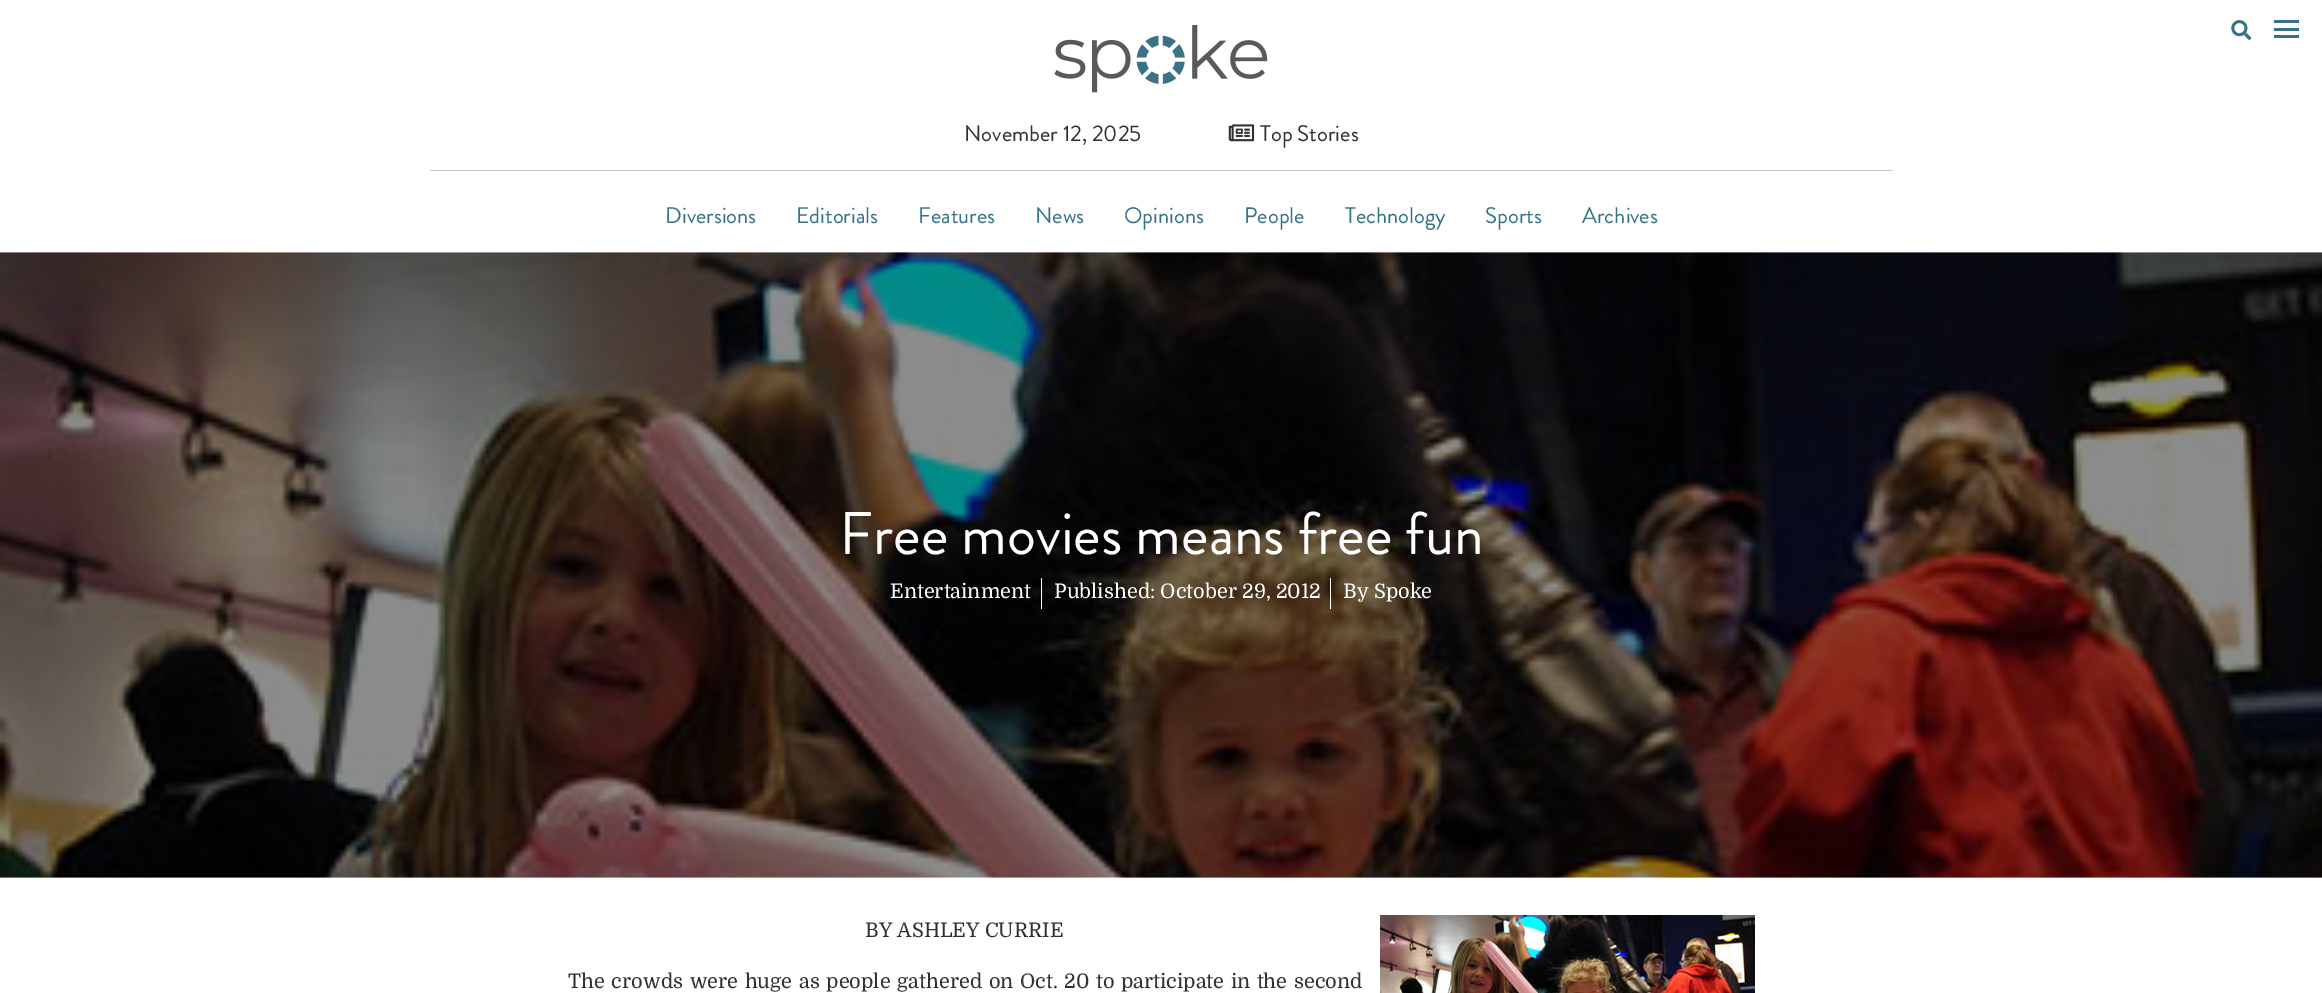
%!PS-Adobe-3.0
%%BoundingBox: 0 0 2322 993
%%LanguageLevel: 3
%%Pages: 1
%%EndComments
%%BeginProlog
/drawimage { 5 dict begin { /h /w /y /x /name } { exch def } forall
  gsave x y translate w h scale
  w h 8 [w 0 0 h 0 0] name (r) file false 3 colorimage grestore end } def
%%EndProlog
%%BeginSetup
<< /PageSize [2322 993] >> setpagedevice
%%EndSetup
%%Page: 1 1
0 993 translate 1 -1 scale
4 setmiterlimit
1 setgray
0 0 2322 993 rectfill
(images/1.raw) 2231 20 21 20 drawimage
0.22 0.447 0.529 setrgbcolor
2274 28 25 3 rectfill
2274 20 25 3 rectfill
2274 35 25 3 rectfill
0.792 setgray
430 170 1463 1 rectfill
(images/2.raw) 1054 25 214 68 drawimage
(images/3.raw) 1228 124 27 18 drawimage
(images/4.raw) 0 252 2322 626 drawimage
1 setgray
1041 578 1 31 rectfill
1330 578 1 31 rectfill
(images/5.raw) 1380 915 375 78 drawimage
/BrandonGrotesque-Regular [22.5 0 0 -22.5 0 0] selectfont
0.192 setgray
964 141 moveto (November 12, 2025) show
1260 141 moveto (Top Stories) show
0.22 0.447 0.529 setrgbcolor
665 223 moveto (Diversions) show
796 223 moveto (Editorials) show
918 223 moveto (Features) show
1035 223 moveto (News) show
1124 223 moveto (Opinions) show
1244 223 moveto (People) show
1345 223 moveto (Technology) show
1485 223 moveto (Sports) show
1582 223 moveto (Archives) show
/BrandonGrotesque-Regular [60 0 0 -60 0 0] selectfont
1 setgray
839 554 moveto (Free movies means free fun) show
/Domine-Regular [20 0 0 -20 0 0] selectfont
890 598 moveto (Entertainment) show
1054 598 moveto (Published: October 29, 2012) show
1343 598 moveto (By Spoke) show
0.192 setgray
865 937 moveto (BY ASHLEY CURRIE) show
568 988 moveto 1.5 0 32 (The crowds were huge as people gathered on Oct. 20 to participate in the second) widthshow
showpage
%%EOF
